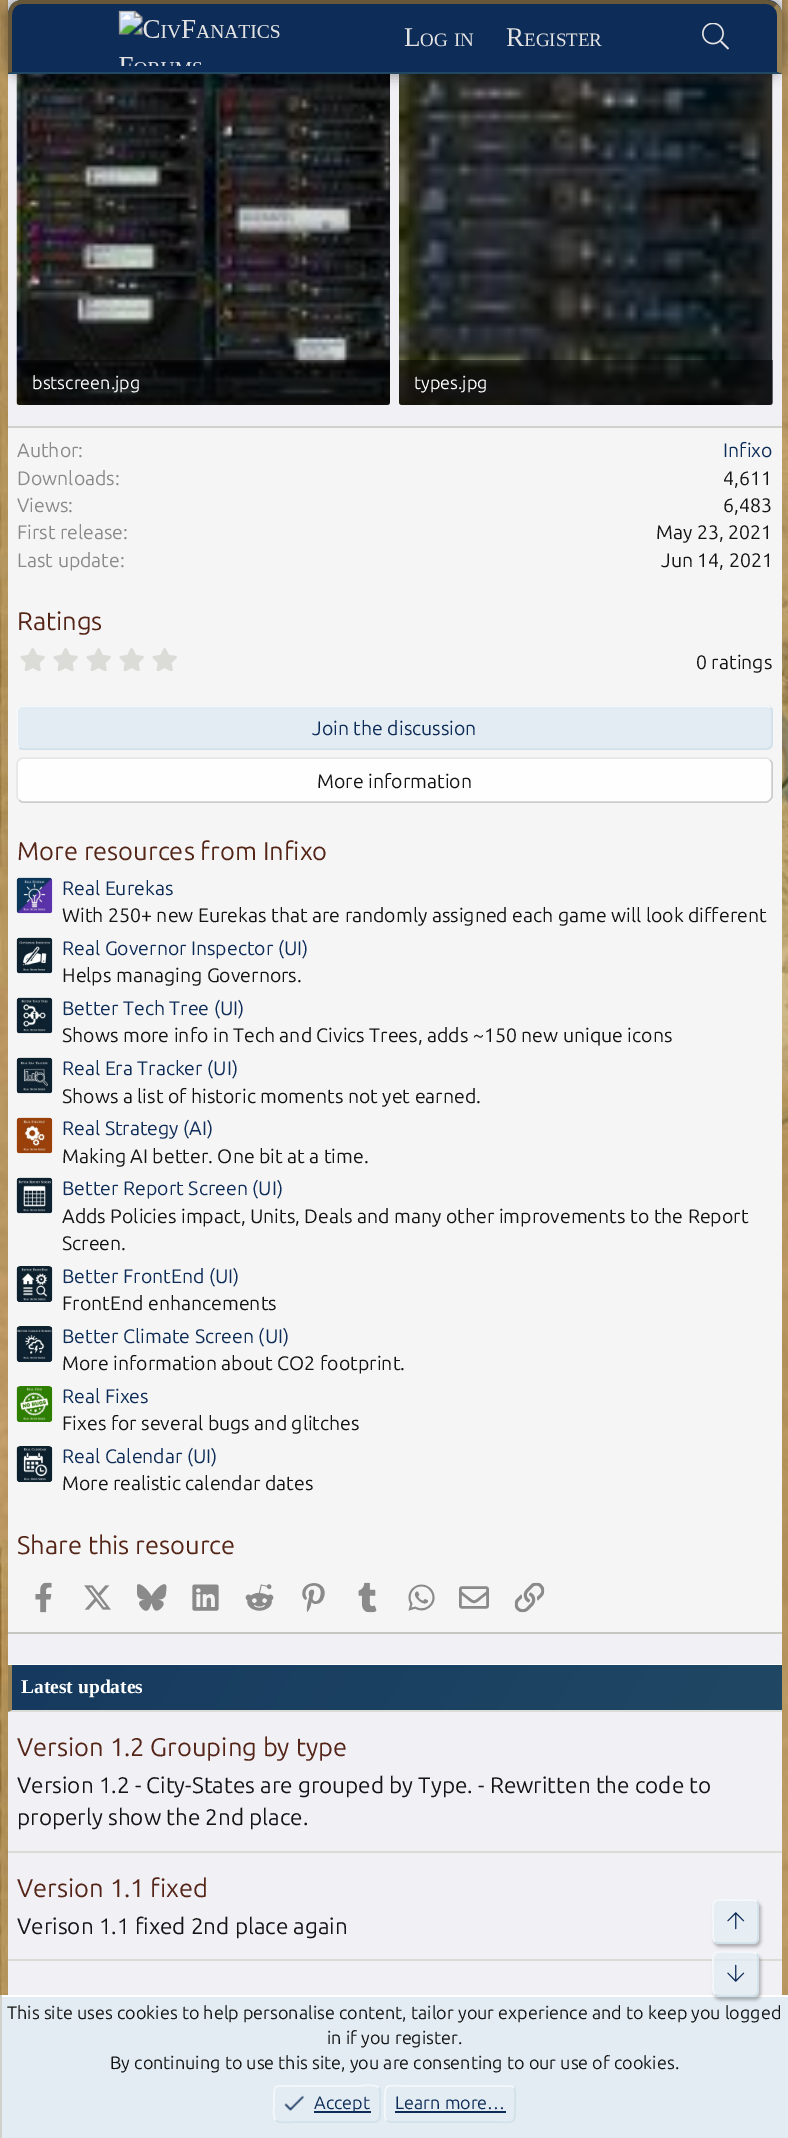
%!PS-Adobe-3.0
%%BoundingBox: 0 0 788 2138
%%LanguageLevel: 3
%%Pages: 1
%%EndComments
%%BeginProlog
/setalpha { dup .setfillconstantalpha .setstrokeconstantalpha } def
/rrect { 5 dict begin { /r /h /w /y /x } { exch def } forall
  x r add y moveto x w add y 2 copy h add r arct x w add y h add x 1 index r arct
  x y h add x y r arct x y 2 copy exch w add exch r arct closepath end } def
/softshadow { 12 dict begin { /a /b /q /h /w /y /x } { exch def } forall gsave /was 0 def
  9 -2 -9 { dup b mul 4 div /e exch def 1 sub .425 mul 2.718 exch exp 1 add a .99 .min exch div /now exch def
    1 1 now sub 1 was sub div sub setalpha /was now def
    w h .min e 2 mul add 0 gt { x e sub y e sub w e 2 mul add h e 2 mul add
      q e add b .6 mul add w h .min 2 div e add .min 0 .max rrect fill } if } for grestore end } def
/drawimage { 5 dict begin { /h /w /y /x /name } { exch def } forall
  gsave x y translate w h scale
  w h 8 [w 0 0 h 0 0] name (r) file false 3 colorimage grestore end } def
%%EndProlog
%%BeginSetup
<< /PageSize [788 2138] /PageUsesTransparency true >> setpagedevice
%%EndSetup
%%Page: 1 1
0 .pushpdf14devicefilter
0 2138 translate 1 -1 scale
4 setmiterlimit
1 setgray
0 0 788 2138 rectfill
(images/1.raw) 0 0 788 1995 drawimage
0.941 0.941 0.961 setrgbcolor
8 0 774 1995 rectfill
(images/4.raw) 16 74 374 331 drawimage
0.961 setgray
399 33 374 372 3 rrect fill
(images/5.raw) 399 74 374 331 drawimage
0 setgray
3 -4 783 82 20 6 0.3 softshadow
0.055 0.173 0.345 setrgbcolor
newpath 23 0 moveto 767 0 lineto 775.5 0 782 6.5 782 15 curveto 782 74 lineto 8 74 lineto 8 15 lineto 8 6.5 14.5 0 23 0 curveto closepath fill
0.4 0.341 0.224 setrgbcolor
newpath 22 0 moveto 18 0 14 2 12 4 curveto 15 7 lineto 17 5 19 4 22 4 curveto 766 4 lineto 769 4 772 5 774 8 curveto 777 4 lineto 774 2 770 0 766 0 curveto closepath fill
0.6 0.51 0.337 setrgbcolor
newpath 777 4 moveto 779 6 781 9 782 11 curveto 782 74 lineto 777 72 lineto 777 15 lineto 777 12 776 9 774 8 curveto closepath fill
0.125 0.282 0.392 setrgbcolor
newpath 782 74 moveto 8 74 lineto 12 72 lineto 777 72 lineto closepath fill
0.4 0.341 0.224 setrgbcolor
newpath 12 4 moveto 10 7 8 11 8 15 curveto 8 73 lineto 12 72 lineto 12 15 lineto 12 12 13 9 15 7 curveto closepath fill
(images/2.raw) 118 10 162 56 drawimage
(images/3.raw) 702 23 27 27 drawimage
0.78 0.78 0.757 setrgbcolor
8 1632 774 2 rectfill
0.5 setalpha
0 setgray
newpath 17 360 moveto 390 360 lineto 390 402 lineto 390 403.5 388.5 405 387 405 curveto 20 405 lineto 18.5 405 17 403.5 17 402 curveto closepath fill
newpath 399 360 moveto 773 360 lineto 773 402 lineto 773 403.5 771.5 405 770 405 curveto 402 405 lineto 400.5 405 399 403.5 399 402 curveto closepath fill
1 setalpha
0.961 setgray
8 428 774 1204 rectfill
0.82 0.82 0.8 setrgbcolor
8 426 774 2 rectfill
(images/6.raw) 20 648 25 23 drawimage
(images/6.raw) 53 648 25 23 drawimage
(images/6.raw) 86 648 25 23 drawimage
(images/6.raw) 119 648 25 23 drawimage
(images/6.raw) 152 648 25 23 drawimage
0.89 0.925 0.949 setrgbcolor
17 705 756 45 6 rrect fill
0.824 0.878 0.918 setrgbcolor
1.5 setlinewidth
newpath 770 707.5 moveto 771 708.5 772 709.5 772 711 curveto 772 744 lineto 772 745.5 771 746.5 770 747.5 curveto 769 748.5 768 749 766.5 749 curveto 22.5 749 lineto 21 749 20 748.5 19 747.5 curveto stroke
0.961 0.973 0.98 setrgbcolor
newpath 19 747.5 moveto 18 746.5 17 745.5 17 744 curveto 17 711 lineto 17 709.5 18 708.5 19 707.5 curveto 20 706.5 21 706 22.5 706 curveto 766.5 706 lineto 768 706 769 706.5 770 707.5 curveto stroke
0.996 setgray
17 758 756 45 6 rrect fill
0.8 setgray
newpath 770 760 moveto 771 761 772 762 772 763.5 curveto 772 796.5 lineto 772 798 771 799 770 800 curveto 769 801 768 802 766.5 802 curveto 22.5 802 lineto 21 802 20 801 19 800 curveto stroke
0.902 setgray
newpath 19 800 moveto 18 799 17 798 17 796.5 curveto 17 763.5 lineto 17 762 18 761 19 760 curveto 20 759 21 758 22.5 758 curveto 766.5 758 lineto 768 758 769 759 770 760 curveto stroke
1 setgray
17 878 36 36 4 rrect fill
(images/7.raw) 16 877 37 37 drawimage
17 938 36 36 4 rrect fill
(images/8.raw) 16 937 37 37 drawimage
17 998 36 36 4 rrect fill
(images/9.raw) 16 997 37 37 drawimage
17 1058 36 36 4 rrect fill
(images/10.raw) 16 1057 37 37 drawimage
17 1118 36 36 4 rrect fill
(images/11.raw) 16 1117 37 37 drawimage
17 1178 36 36 4 rrect fill
(images/12.raw) 16 1177 37 37 drawimage
17 1266 36 36 4 rrect fill
(images/13.raw) 16 1266 37 36 drawimage
17 1326 36 36 4 rrect fill
(images/14.raw) 16 1326 37 36 drawimage
17 1386 36 36 4 rrect fill
(images/15.raw) 16 1386 37 36 drawimage
17 1446 36 36 4 rrect fill
(images/16.raw) 16 1446 37 36 drawimage
(images/17.raw) 35 1582 17 31 drawimage
(images/18.raw) 84 1585 27 25 drawimage
(images/19.raw) 137 1584 30 27 drawimage
(images/20.raw) 192 1584 27 27 drawimage
(images/21.raw) 245 1584 29 27 drawimage
(images/22.raw) 302 1583 23 29 drawimage
(images/23.raw) 358 1582 19 31 drawimage
(images/24.raw) 408 1584 27 27 drawimage
(images/25.raw) 459 1586 30 23 drawimage
(images/26.raw) 514 1582 31 31 drawimage
8 1664 774 1 rectfill
gsave newpath 12 1665 moveto 782 1665 lineto 782 1710 lineto 12 1710 lineto closepath clip newpath
<< /ShadingType 2 /ColorSpace /DeviceRGB /Coords [695 1860 98 1515] /Extend [true true] /Function << /FunctionType 2 /Domain [0 1] /C0 [0.125 0.282 0.392] /C1 [0.086 0.227 0.373] /N 1 >> >> shfill grestore
0.859 0.859 0.843 setrgbcolor
newpath 782 1712 moveto 8 1712 lineto 12 1710 lineto 782 1710 lineto closepath fill
0.6 0.51 0.337 setrgbcolor
newpath 8 1712 moveto 8 1665 lineto 12 1665 lineto 12 1710 lineto closepath fill
0.859 0.859 0.843 setrgbcolor
8 1851 774 2 rectfill
8 1959 774 2 rectfill
gsave
newpath 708 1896 moveto 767 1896 lineto 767 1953 lineto 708 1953 lineto closepath 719 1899 moveto 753 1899 lineto 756.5 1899 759 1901.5 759 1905 curveto 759 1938 lineto 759 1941.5 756.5 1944 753 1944 curveto 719 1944 lineto 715.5 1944 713 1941.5 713 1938 curveto 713 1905 lineto 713 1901.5 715.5 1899 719 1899 curveto closepath eoclip newpath
0 setgray
714 1902 47 45 6 1.5 0.25 softshadow
grestore
0.75 setalpha
0.89 0.925 0.949 setrgbcolor
713 1899 46 45 6 rrect fill
1 setalpha
0.824 0.878 0.918 setrgbcolor
newpath 756.5 1901.5 moveto 759 1903.5 758 1907.5 758 1910.5 curveto 758 1921.5 lineto 758 1947 761.5 1943 736 1943 curveto 724 1943 lineto 721.5 1943 717 1944 715 1941.5 curveto stroke
0.961 0.973 0.98 setrgbcolor
newpath 715 1941.5 moveto 712.5 1939.5 713 1935.5 713 1932.5 curveto 713 1921.5 lineto 713 1896 710 1900 736 1900 curveto 747 1900 lineto 750 1900 754.5 1899 756.5 1901.5 curveto stroke
(images/27.raw) 727 1912 18 18 drawimage
0.89 0.925 0.949 setrgbcolor
2 1997 786 141 rectfill
gsave
newpath 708 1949 moveto 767 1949 lineto 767 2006 lineto 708 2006 lineto closepath 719 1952 moveto 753 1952 lineto 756.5 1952 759 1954.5 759 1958 curveto 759 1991 lineto 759 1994.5 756.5 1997 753 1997 curveto 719 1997 lineto 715.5 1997 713 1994.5 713 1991 curveto 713 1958 lineto 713 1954.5 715.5 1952 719 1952 curveto closepath eoclip newpath
0 setgray
714 1955 47 45 6 1.5 0.25 softshadow
grestore
0.75 setalpha
713 1952 46 45 6 rrect fill
1 setalpha
0.824 0.878 0.918 setrgbcolor
newpath 756.5 1954 moveto 759 1956 758 1960 758 1963 curveto 758 1974 lineto 758 1999.5 761.5 1996 736 1996 curveto 724 1996 lineto 721.5 1996 717 1996.5 715 1994 curveto stroke
0.961 0.973 0.98 setrgbcolor
newpath 715 1994 moveto 712.5 1992 713 1988 713 1985 curveto 713 1974 lineto 713 1948.5 710 1952 736 1952 curveto 747 1952 lineto 750 1952 754.5 1951.5 756.5 1954 curveto stroke
(images/28.raw) 727 1964 18 18 drawimage
0.82 0.82 0.8 setrgbcolor
0 1995 2 143 rectfill
0.824 0.878 0.918 setrgbcolor
newpath 378.5 2087.5 moveto 381.5 2090 380 2100 380 2104 curveto 380 2125 382 2122 359 2122 curveto 295 2122 lineto 293.5 2122 279 2124 275.5 2120 curveto stroke
0.961 0.973 0.98 setrgbcolor
newpath 275.5 2120 moveto 272.5 2117.5 274 2107.5 274 2104 curveto 274 2082.5 272 2086 295 2086 curveto 359 2086 lineto 360.5 2086 375 2083.5 378.5 2087.5 curveto stroke
(images/29.raw) 284 2095 20 16 drawimage
0.055 0.173 0.345 setrgbcolor
314 2111 57 2 rectfill
0.824 0.878 0.918 setrgbcolor
newpath 513.5 2087.5 moveto 516.5 2090 515 2100 515 2104 curveto 515 2126.5 516.5 2122 490 2122 curveto 390 2122 lineto 388.5 2121.5 387.5 2121 386.5 2120 curveto stroke
0.961 0.973 0.98 setrgbcolor
newpath 386.5 2120 moveto 383.5 2117.5 385 2107.5 385 2104 curveto 385 2081 383.5 2086 410 2086 curveto 510 2086 lineto 511.5 2086 512.5 2086.5 513.5 2087.5 curveto stroke
0.055 0.173 0.345 setrgbcolor
395 2111 111 2 rectfill
/LiberationSerif-Regular [27 0 0 -27 0 0] selectfont
0.89 setgray
404 46 moveto (L) show
/LiberationSerif-Regular [19 0 0 -19 0 0] selectfont
420 46 moveto (OG) show
454 46 moveto (IN) show
/LiberationSerif-Regular [27 0 0 -27 0 0] selectfont
506 46 moveto (R) show
/LiberationSerif-Regular [19 0 0 -19 0 0] selectfont
524 46 moveto (EGISTER) show
/Ubuntu-Regular [18 0 0 -18 0 0] selectfont
1 setgray
32 389 moveto (bstscreen.jpg) show
414 389 moveto (types.jpg) show
/Ubuntu-Regular [19.5 0 0 -19.5 0 0] selectfont
0.541 setgray
17 457 moveto (Author:) show
0.055 0.173 0.345 setrgbcolor
723 457 moveto (Infixo) show
0.541 setgray
17 485 moveto (Downloads:) show
0.078 setgray
723 485 moveto (4,611) show
0.541 setgray
17 512 moveto (Views:) show
0.078 setgray
723 512 moveto (6,483) show
0.541 setgray
17 539 moveto (First release:) show
0.078 setgray
656 539 moveto (May 23, 2021) show
0.541 setgray
17 567 moveto (Last update:) show
0.078 setgray
661 567 moveto (Jun 14, 2021) show
/Ubuntu-Regular [25.5 0 0 -25.5 0 0] selectfont
0.329 0.141 0.09 setrgbcolor
17 630 moveto (Ratings) show
/Ubuntu-Regular [19.5 0 0 -19.5 0 0] selectfont
0.078 setgray
696 669 moveto (0 ratings) show
0.055 0.173 0.345 setrgbcolor
312 735 moveto (Join the discussion) show
0.078 setgray
317 788 moveto (More information) show
/Ubuntu-Regular [25.5 0 0 -25.5 0 0] selectfont
0.329 0.141 0.09 setrgbcolor
17 860 moveto (More resources from Infixo) show
/Ubuntu-Regular [19.5 0 0 -19.5 0 0] selectfont
0.055 0.173 0.345 setrgbcolor
62 895 moveto (Real Eurekas) show
0.078 setgray
62 922 moveto (With 250+ new Eurekas that are randomly assigned each game will look different) show
0.055 0.173 0.345 setrgbcolor
62 955 moveto (Real Governor Inspector \(UI\)) show
0.078 setgray
62 982 moveto (Helps managing Governors.) show
0.055 0.173 0.345 setrgbcolor
62 1015 moveto (Better Tech Tree \(UI\)) show
0.078 setgray
62 1042 moveto (Shows more info in Tech and Civics Trees, adds ~150 new unique icons) show
0.055 0.173 0.345 setrgbcolor
62 1075 moveto (Real Era Tracker \(UI\)) show
0.078 setgray
62 1103 moveto (Shows a list of historic moments not yet earned.) show
0.055 0.173 0.345 setrgbcolor
62 1135 moveto (Real Strategy \(AI\)) show
0.078 setgray
62 1163 moveto (Making AI better. One bit at a time.) show
0.055 0.173 0.345 setrgbcolor
62 1195 moveto (Better Report Screen \(UI\)) show
0.078 setgray
62 1223 moveto (Adds Policies impact, Units, Deals and many other improvements to the Report) show
62 1250 moveto (Screen.) show
0.055 0.173 0.345 setrgbcolor
62 1283 moveto (Better FrontEnd \(UI\)) show
0.078 setgray
62 1310 moveto (FrontEnd enhancements) show
0.055 0.173 0.345 setrgbcolor
62 1343 moveto (Better Climate Screen \(UI\)) show
0.078 setgray
62 1370 moveto (More information about CO2 footprint.) show
0.055 0.173 0.345 setrgbcolor
62 1403 moveto (Real Fixes) show
0.078 setgray
62 1430 moveto (Fixes for several bugs and glitches) show
0.055 0.173 0.345 setrgbcolor
62 1463 moveto (Real Calendar \(UI\)) show
0.078 setgray
62 1490 moveto (More realistic calendar dates) show
/Ubuntu-Regular [25.5 0 0 -25.5 0 0] selectfont
0.329 0.141 0.09 setrgbcolor
17 1554 moveto (Share this resource) show
/LiberationSerif-Bold [19.5 0 0 -19.5 0 0] selectfont
1 setgray
21 1693 moveto (Latest updates) show
/Ubuntu-Regular [25.5 0 0 -25.5 0 0] selectfont
0.329 0.141 0.09 setrgbcolor
17 1756 moveto (Version 1.2 Grouping by type) show
/Ubuntu-Regular [22.5 0 0 -22.5 0 0] selectfont
0.078 setgray
17 1793 moveto (Version 1.2 - City-States are grouped by Type. - Rewritten the code to) show
17 1825 moveto (properly show the 2nd place.) show
/Ubuntu-Regular [25.5 0 0 -25.5 0 0] selectfont
0.329 0.141 0.09 setrgbcolor
17 1897 moveto (Version 1.1 fixed) show
/Ubuntu-Regular [22.5 0 0 -22.5 0 0] selectfont
0.078 setgray
17 1934 moveto (Verison 1.1 fixed 2nd place again) show
/Ubuntu-Regular [18 0 0 -18 0 0] selectfont
7 2019 moveto (This site uses cookies to help personalise content, tailor your experience and to keep you logged) show
327 2044 moveto (in if you register.) show
110 2069 moveto (By continuing to use this site, you are consenting to our use of cookies.) show
0.055 0.173 0.345 setrgbcolor
314 2109 moveto (Accept) show
395 2109 moveto (Learn more…) show
.poppdf14devicefilter showpage
%%EOF
